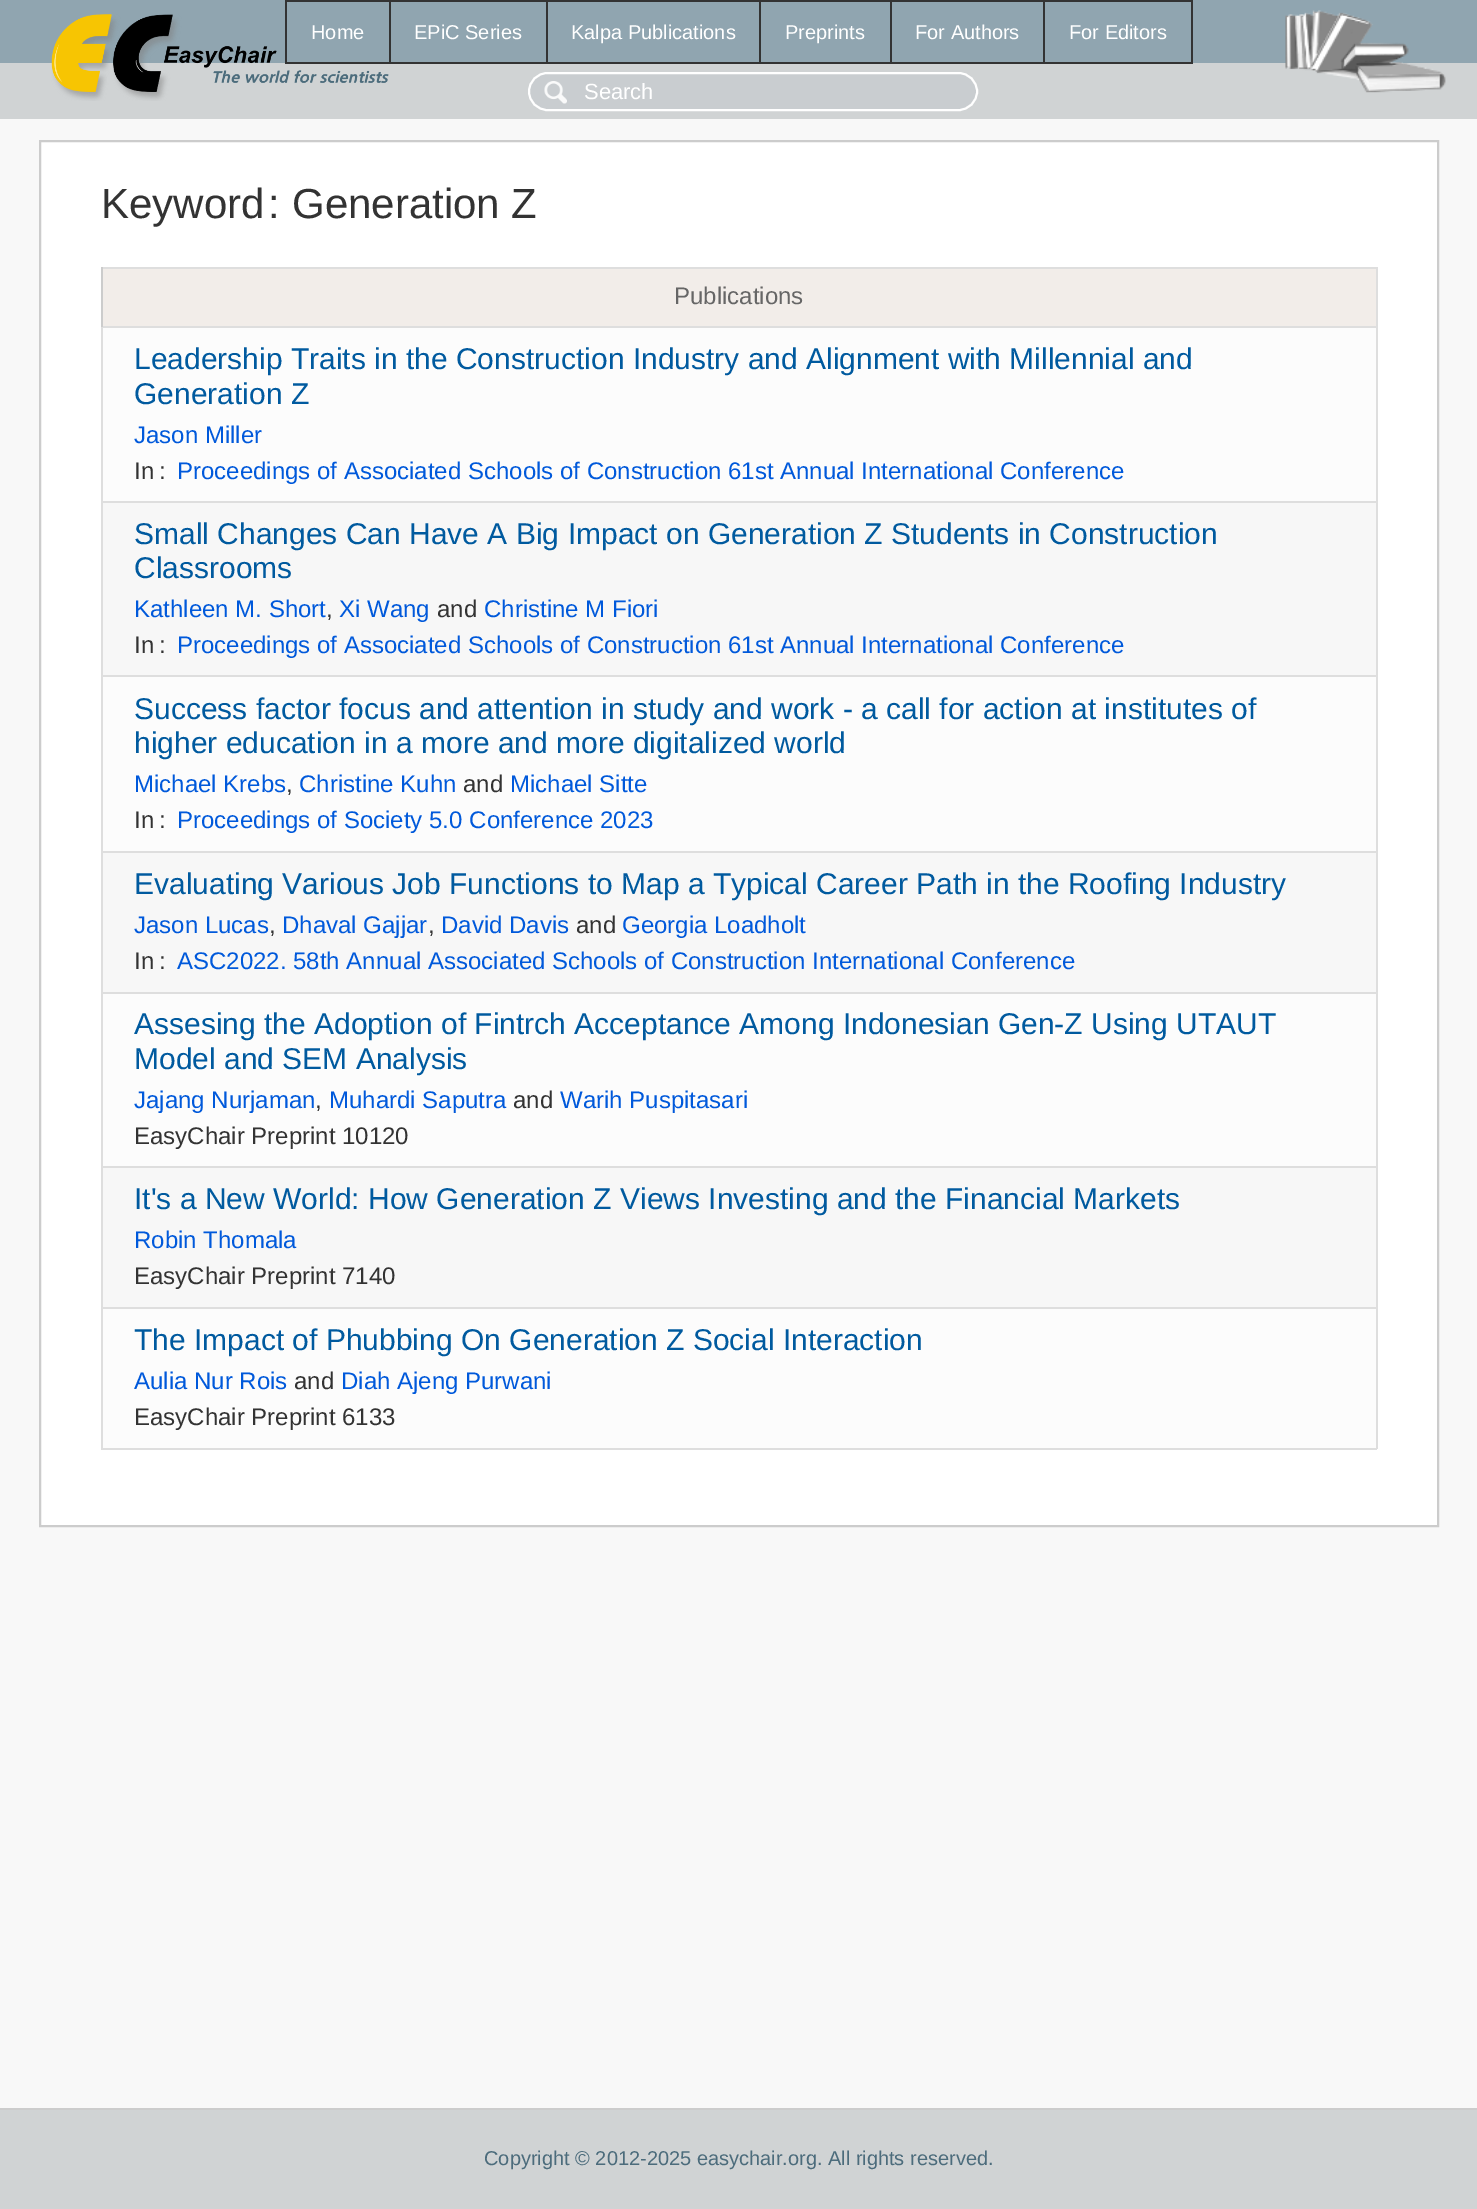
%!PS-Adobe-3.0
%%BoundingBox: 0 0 1477 2209
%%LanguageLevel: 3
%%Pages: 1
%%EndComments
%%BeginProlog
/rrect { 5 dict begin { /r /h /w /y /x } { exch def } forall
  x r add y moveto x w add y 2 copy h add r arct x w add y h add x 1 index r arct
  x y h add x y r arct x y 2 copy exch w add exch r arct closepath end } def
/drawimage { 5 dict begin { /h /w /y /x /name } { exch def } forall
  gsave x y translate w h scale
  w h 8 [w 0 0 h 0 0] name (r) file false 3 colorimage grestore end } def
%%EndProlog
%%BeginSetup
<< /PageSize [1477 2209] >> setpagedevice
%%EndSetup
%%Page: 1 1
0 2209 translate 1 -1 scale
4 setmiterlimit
0.565 0.647 0.69 setrgbcolor
0 0 1477 2209 rectfill
0.816 0.827 0.831 setrgbcolor
0 65 1476 52 rectfill
0 63 1477 2 rectfill
(images/1.raw) 51 14 338 87 drawimage
0.2 setgray
1043 0 150 2 rectfill
1191 0 2 63 rectfill
1043 62 150 2 rectfill
1043 0 2 63 rectfill
890 0 154 2 rectfill
890 62 154 2 rectfill
890 0 2 63 rectfill
759 0 132 2 rectfill
759 62 132 2 rectfill
759 0 2 63 rectfill
546 0 215 2 rectfill
546 62 215 2 rectfill
546 0 2 63 rectfill
389 0 159 2 rectfill
389 62 159 2 rectfill
389 0 2 63 rectfill
285 0 105 2 rectfill
285 62 105 2 rectfill
285 0 2 63 rectfill
(images/2.raw) 1285 10 161 83 drawimage
0.816 0.827 0.831 setrgbcolor
1476 63 1 56 rectfill
0 117 1477 2 rectfill
0.788 0.804 0.816 setrgbcolor
528 72 450 39 19.5 rrect fill
(images/3.raw) 544 81 23 23 drawimage
1 setgray
2 setlinewidth
529 73 448 37 18.5 rrect stroke
0.973 setgray
0 119 1477 1989 rectfill
1 setgray
newpath 40 141 moveto 1438 141 lineto 1438 1526 lineto 40 1526 lineto closepath gsave fill grestore
0.8 setgray
stroke
0.871 setgray
101 267 1276 2 rectfill
1376 267 2 1182 rectfill
101 1448 1276 2 rectfill
101 328 2 1121 rectfill
0.949 0.929 0.914 setrgbcolor
103 269 1273 57 rectfill
0.871 setgray
101 326 1276 2 rectfill
0.8 setgray
101 267 2 60 rectfill
0.988 setgray
103 328 1273 173 rectfill
0.871 setgray
101 501 1276 2 rectfill
0.969 setgray
103 503 1273 172 rectfill
0.871 setgray
101 675 1276 2 rectfill
0.988 setgray
103 677 1273 174 rectfill
0.871 setgray
101 851 1276 2 rectfill
0.969 setgray
103 853 1273 139 rectfill
0.871 setgray
101 992 1276 2 rectfill
0.988 setgray
103 994 1273 172 rectfill
0.871 setgray
101 1166 1276 2 rectfill
0.969 setgray
103 1168 1273 139 rectfill
0.871 setgray
101 1307 1276 2 rectfill
0.988 setgray
103 1309 1273 139 rectfill
0.816 0.827 0.831 setrgbcolor
0 2110 1477 99 rectfill
0.8 setgray
0 2108 1477 2 rectfill
/LiberationSans-Regular [20 0 0 -20 0 0] selectfont
1 setgray
311 39 moveto (Home) show
414 39 moveto (EPiC Series) show
571 39 moveto (Kalpa Publications) show
785 39 moveto (Preprints) show
915 39 moveto (For Authors) show
1069 39 moveto (For Editors) show
/LiberationSans-Regular [22 0 0 -22 0 0] selectfont
584 99 moveto (Search) show
/LiberationSans-Regular [42 0 0 -42 0 0] selectfont
0.2 setgray
101 218 moveto (Keyword) show
268 218 moveto (:) show
292 218 moveto (Generation Z) show
/LiberationSans-Regular [24 0 0 -24 0 0] selectfont
0.4 setgray
674 304 moveto (Publications) show
/LiberationSans-Regular [30 0 0 -30 0 0] selectfont
0 0.353 0.624 setrgbcolor
134 369 moveto (Leadership Traits in the Construction Industry and Alignment with Millennial and) show
134 404 moveto (Generation Z) show
/LiberationSans-Regular [24 0 0 -24 0 0] selectfont
0 0.349 0.859 setrgbcolor
134 443 moveto (Jason Miller) show
0.2 setgray
134 479 moveto (In) show
159 479 moveto (:) show
0 0.349 0.859 setrgbcolor
177 479 moveto (Proceedings of Associated Schools of Construction 61st Annual International Conference) show
/LiberationSans-Regular [30 0 0 -30 0 0] selectfont
0 0.353 0.624 setrgbcolor
134 544 moveto (Small Changes Can Have A Big Impact on Generation Z Students in Construction) show
134 578 moveto (Classrooms) show
/LiberationSans-Regular [24 0 0 -24 0 0] selectfont
0 0.349 0.859 setrgbcolor
134 617 moveto (Kathleen M. Short) show
0.2 setgray
326 617 moveto (,) show
0 0.349 0.859 setrgbcolor
339 617 moveto (Xi Wang) show
0.2 setgray
437 617 moveto (and) show
0 0.349 0.859 setrgbcolor
484 617 moveto (Christine M Fiori) show
0.2 setgray
134 653 moveto (In) show
159 653 moveto (:) show
0 0.349 0.859 setrgbcolor
177 653 moveto (Proceedings of Associated Schools of Construction 61st Annual International Conference) show
/LiberationSans-Regular [30 0 0 -30 0 0] selectfont
0 0.353 0.624 setrgbcolor
134 719 moveto (Success factor focus and attention in study and work - a call for action at institutes of) show
134 753 moveto (higher education in a more and more digitalized world) show
/LiberationSans-Regular [24 0 0 -24 0 0] selectfont
0 0.349 0.859 setrgbcolor
134 792 moveto (Michael Krebs) show
0.2 setgray
286 792 moveto (,) show
0 0.349 0.859 setrgbcolor
299 792 moveto (Christine Kuhn) show
0.2 setgray
463 792 moveto (and) show
0 0.349 0.859 setrgbcolor
510 792 moveto (Michael Sitte) show
0.2 setgray
134 828 moveto (In) show
159 828 moveto (:) show
0 0.349 0.859 setrgbcolor
177 828 moveto (Proceedings of Society 5.0 Conference 2023) show
/LiberationSans-Regular [30 0 0 -30 0 0] selectfont
0 0.353 0.624 setrgbcolor
134 894 moveto (Evaluating Various Job Functions to Map a Typical Career Path in the Roofing Industry) show
/LiberationSans-Regular [24 0 0 -24 0 0] selectfont
0 0.349 0.859 setrgbcolor
134 933 moveto (Jason Lucas) show
0.2 setgray
269 933 moveto (,) show
0 0.349 0.859 setrgbcolor
282 933 moveto (Dhaval Gajjar) show
0.2 setgray
428 933 moveto (,) show
0 0.349 0.859 setrgbcolor
441 933 moveto (David Davis) show
0.2 setgray
576 933 moveto (and) show
0 0.349 0.859 setrgbcolor
622 933 moveto (Georgia Loadholt) show
0.2 setgray
134 969 moveto (In) show
159 969 moveto (:) show
0 0.349 0.859 setrgbcolor
177 969 moveto (ASC2022. 58th Annual Associated Schools of Construction International Conference) show
/LiberationSans-Regular [30 0 0 -30 0 0] selectfont
0 0.353 0.624 setrgbcolor
134 1034 moveto (Assesing the Adoption of Fintrch Acceptance Among Indonesian Gen-Z Using UTAUT) show
134 1069 moveto (Model and SEM Analysis) show
/LiberationSans-Regular [24 0 0 -24 0 0] selectfont
0 0.349 0.859 setrgbcolor
134 1108 moveto (Jajang Nurjaman) show
0.2 setgray
315 1108 moveto (,) show
0 0.349 0.859 setrgbcolor
329 1108 moveto (Muhardi Saputra) show
0.2 setgray
513 1108 moveto (and) show
0 0.349 0.859 setrgbcolor
560 1108 moveto (Warih Puspitasari) show
0.2 setgray
134 1144 moveto (EasyChair Preprint 10120) show
/LiberationSans-Regular [30 0 0 -30 0 0] selectfont
0 0.353 0.624 setrgbcolor
134 1209 moveto (It's a New World: How Generation Z Views Investing and the Financial Markets) show
/LiberationSans-Regular [24 0 0 -24 0 0] selectfont
0 0.349 0.859 setrgbcolor
134 1248 moveto (Robin Thomala) show
0.2 setgray
134 1284 moveto (EasyChair Preprint 7140) show
/LiberationSans-Regular [30 0 0 -30 0 0] selectfont
0 0.353 0.624 setrgbcolor
134 1350 moveto (The Impact of Phubbing On Generation Z Social Interaction) show
/LiberationSans-Regular [24 0 0 -24 0 0] selectfont
0 0.349 0.859 setrgbcolor
134 1389 moveto (Aulia Nur Rois) show
0.2 setgray
294 1389 moveto (and) show
0 0.349 0.859 setrgbcolor
341 1389 moveto (Diah Ajeng Purwani) show
0.2 setgray
134 1425 moveto (EasyChair Preprint 6133) show
/LiberationSans-Regular [20 0 0 -20 0 0] selectfont
0.298 0.424 0.486 setrgbcolor
484 2165 moveto (Copyright © 2012-2025 easychair.org. All rights reserved.) show
showpage
%%EOF
